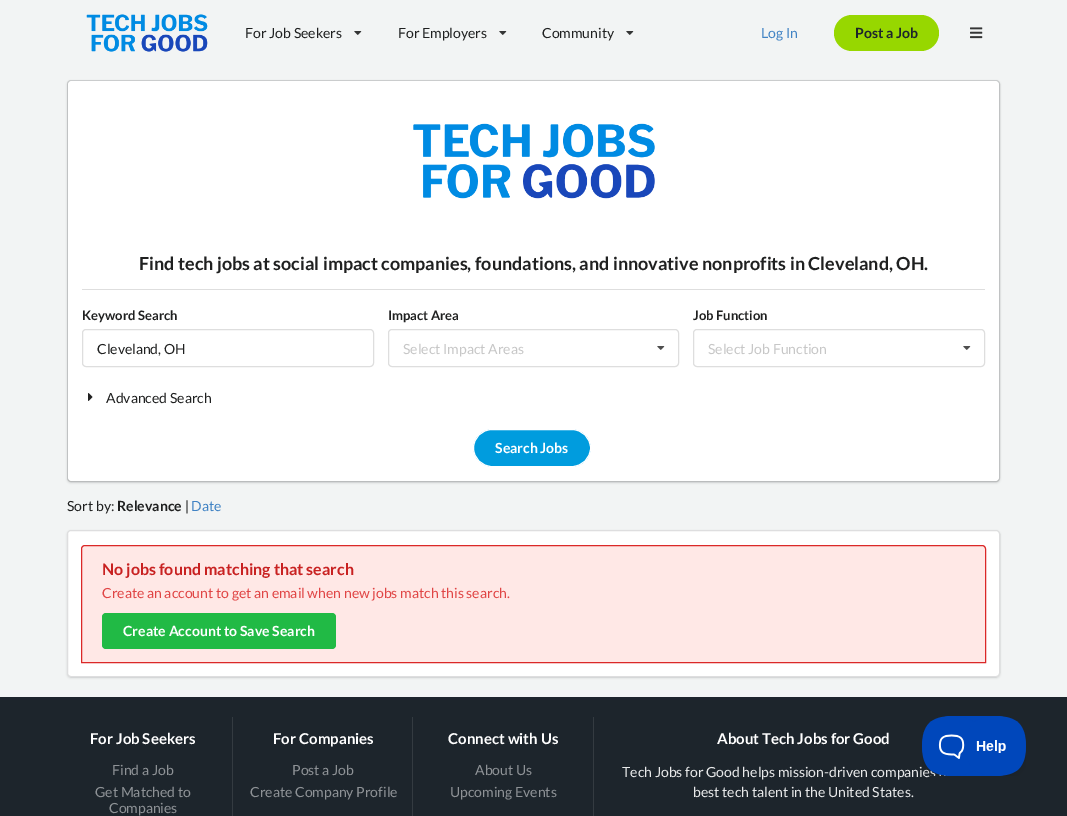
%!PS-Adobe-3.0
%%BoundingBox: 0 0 1067 816
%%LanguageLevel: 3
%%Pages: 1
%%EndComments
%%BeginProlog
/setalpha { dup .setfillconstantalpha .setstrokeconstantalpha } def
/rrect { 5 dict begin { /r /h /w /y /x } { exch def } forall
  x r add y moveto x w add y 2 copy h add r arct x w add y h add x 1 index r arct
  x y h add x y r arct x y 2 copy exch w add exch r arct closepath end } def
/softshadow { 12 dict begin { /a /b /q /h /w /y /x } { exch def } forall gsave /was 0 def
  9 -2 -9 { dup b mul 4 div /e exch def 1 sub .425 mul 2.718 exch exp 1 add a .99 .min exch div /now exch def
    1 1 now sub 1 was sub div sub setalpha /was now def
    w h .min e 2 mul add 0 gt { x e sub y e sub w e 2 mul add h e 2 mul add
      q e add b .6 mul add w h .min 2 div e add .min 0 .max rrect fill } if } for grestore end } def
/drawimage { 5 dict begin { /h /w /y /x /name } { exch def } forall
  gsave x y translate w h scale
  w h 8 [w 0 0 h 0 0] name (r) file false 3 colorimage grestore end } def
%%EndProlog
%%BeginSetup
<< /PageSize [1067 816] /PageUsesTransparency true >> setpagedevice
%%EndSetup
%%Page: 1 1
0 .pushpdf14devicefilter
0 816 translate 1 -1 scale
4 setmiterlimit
0.949 0.957 0.957 setrgbcolor
0 0 1067 816 rectfill
(images/1.raw) 86 14 122 38 drawimage
(images/2.raw) 354 31 8 4 drawimage
(images/2.raw) 499 31 8 4 drawimage
(images/2.raw) 626 31 8 4 drawimage
0.592 0.843 0 setrgbcolor
834 15 105 36 18 rrect fill
(images/3.raw) 970 27 13 12 drawimage
0.133 0.141 0.149 setrgbcolor
67 81 933 402 4 1 0.15 softshadow
0.15 setalpha
67.5 80.5 932 401 3.5 rrect stroke
1 setalpha
1 setgray
68 81 931 400 4 rrect fill
(images/4.raw) 413 123 242 76 drawimage
0.871 setgray
82 289 903 1 rectfill
82.5 329.5 291 37 3.5 rrect stroke
388.5 329.5 290 37 3.5 rrect stroke
(images/5.raw) 657 346 8 4 drawimage
693.5 329.5 291 37 3.5 rrect stroke
(images/5.raw) 963 346 8 4 drawimage
(images/6.raw) 88 393 5 8 drawimage
0 0.612 0.871 setrgbcolor
473.5 429.5 117 37 18.5 rrect gsave fill grestore
1 setgray
stroke
0.133 0.141 0.149 setrgbcolor
67 531 933 147 4 1 0.15 softshadow
1 setgray
67 530 933 147 4 rrect fill
0.15 setalpha
0.133 0.141 0.149 setrgbcolor
67.5 530.5 932 146 3.5 rrect stroke
1 setalpha
1 0.91 0.902 setrgbcolor
newpath 85 545.5 moveto 982 545.5 lineto 984 545.5 985.5 547 985.5 549 curveto 985.5 662.5 lineto 81.5 662.5 lineto 81.5 549 lineto 81.5 547 83 545.5 85 545.5 curveto closepath gsave fill grestore
0.859 0.157 0.157 setrgbcolor
stroke
0.129 0.729 0.271 setrgbcolor
102 613 234 36 4 rrect fill
0.114 0.145 0.173 setrgbcolor
0 697 1067 119 rectfill
0.204 0.231 0.255 setrgbcolor
232 717 1 99 rectfill
412 717 1 99 rectfill
593 717 1 99 rectfill
/Lato-Regular [14 0 0 -14 0 0] selectfont
0.122 0.125 0.125 setrgbcolor
245 38 moveto (For Job Seekers) show
398 38 moveto (For Employers) show
542 38 moveto (Community) show
0.255 0.514 0.769 setrgbcolor
761 38 moveto (Log In) show
/Lato-Bold [14 0 0 -14 0 0] selectfont
0.114 0.145 0.173 setrgbcolor
855 38 moveto (Post a Job) show
/Lato-Bold [18 0 0 -18 0 0] selectfont
0.122 0.125 0.125 setrgbcolor
139 270 moveto (Find tech jobs at social impact companies, foundations, and innovative nonprofits in Cleveland, OH.) show
/Lato-Bold [13 0 0 -13 0 0] selectfont
82 320 moveto (Keyword Search) show
/Lato-Regular [14 0 0 -14 0 0] selectfont
97 354 moveto (Cleveland, OH) show
/Lato-Bold [13 0 0 -13 0 0] selectfont
388 320 moveto (Impact Area) show
/Lato-Regular [14 0 0 -14 0 0] selectfont
0.78 setgray
403 354 moveto (Select Impact Areas) show
/Lato-Bold [13 0 0 -13 0 0] selectfont
0.122 0.125 0.125 setrgbcolor
693 320 moveto (Job Function) show
/Lato-Regular [14 0 0 -14 0 0] selectfont
0.78 setgray
708 354 moveto (Select Job Function) show
0.122 0.125 0.125 setrgbcolor
106 403 moveto (Advanced Search) show
/Lato-Bold [14 0 0 -14 0 0] selectfont
1 setgray
495 453 moveto (Search Jobs) show
/Lato-Regular [14 0 0 -14 0 0] selectfont
0.122 0.125 0.125 setrgbcolor
67 511 moveto (Sort by:) show
/Lato-Bold [14 0 0 -14 0 0] selectfont
117 511 moveto (Relevance) show
/Lato-Regular [14 0 0 -14 0 0] selectfont
185 511 moveto (|) show
0.255 0.514 0.769 setrgbcolor
191 511 moveto (Date) show
/Lato-Bold [16 0 0 -16 0 0] selectfont
0.784 0.129 0.129 setrgbcolor
102 575 moveto (No jobs found matching that search) show
/Lato-Regular [14 0 0 -14 0 0] selectfont
0.878 0.271 0.271 setrgbcolor
102 598 moveto (Create an account to get an email when new jobs match this search.) show
/Lato-Bold [14 0 0 -14 0 0] selectfont
1 setgray
123 636 moveto (Create Account to Save Search) show
/Lato-Bold [15 0 0 -15 0 0] selectfont
90 744 moveto (For Job Seekers) show
/Lato-Regular [14 0 0 -14 0 0] selectfont
0.557 0.573 0.588 setrgbcolor
112 775 moveto (Find a Job) show
95 797 moveto (Get Matched to) show
109 813 moveto (Companies) show
/Lato-Bold [15 0 0 -15 0 0] selectfont
1 setgray
273 744 moveto (For Companies) show
/Lato-Regular [14 0 0 -14 0 0] selectfont
0.557 0.573 0.588 setrgbcolor
292 775 moveto (Post a Job) show
250 797 moveto (Create Company Profile) show
/Lato-Bold [15 0 0 -15 0 0] selectfont
1 setgray
448 744 moveto (Connect with Us) show
/Lato-Regular [14 0 0 -14 0 0] selectfont
0.557 0.573 0.588 setrgbcolor
475 775 moveto (About Us) show
450 797 moveto (Upcoming Events) show
/Lato-Bold [15 0 0 -15 0 0] selectfont
1 setgray
717 744 moveto (About Tech Jobs for Good) show
/Lato-Regular [14 0 0 -14 0 0] selectfont
0.91 0.914 0.918 setrgbcolor
622 777 moveto (Tech Jobs for Good helps mission-driven companie) show
693 797 moveto (best tech talent in the United States.) show
(images/7.raw) 922 716 104 60 drawimage
.poppdf14devicefilter showpage
%%EOF
